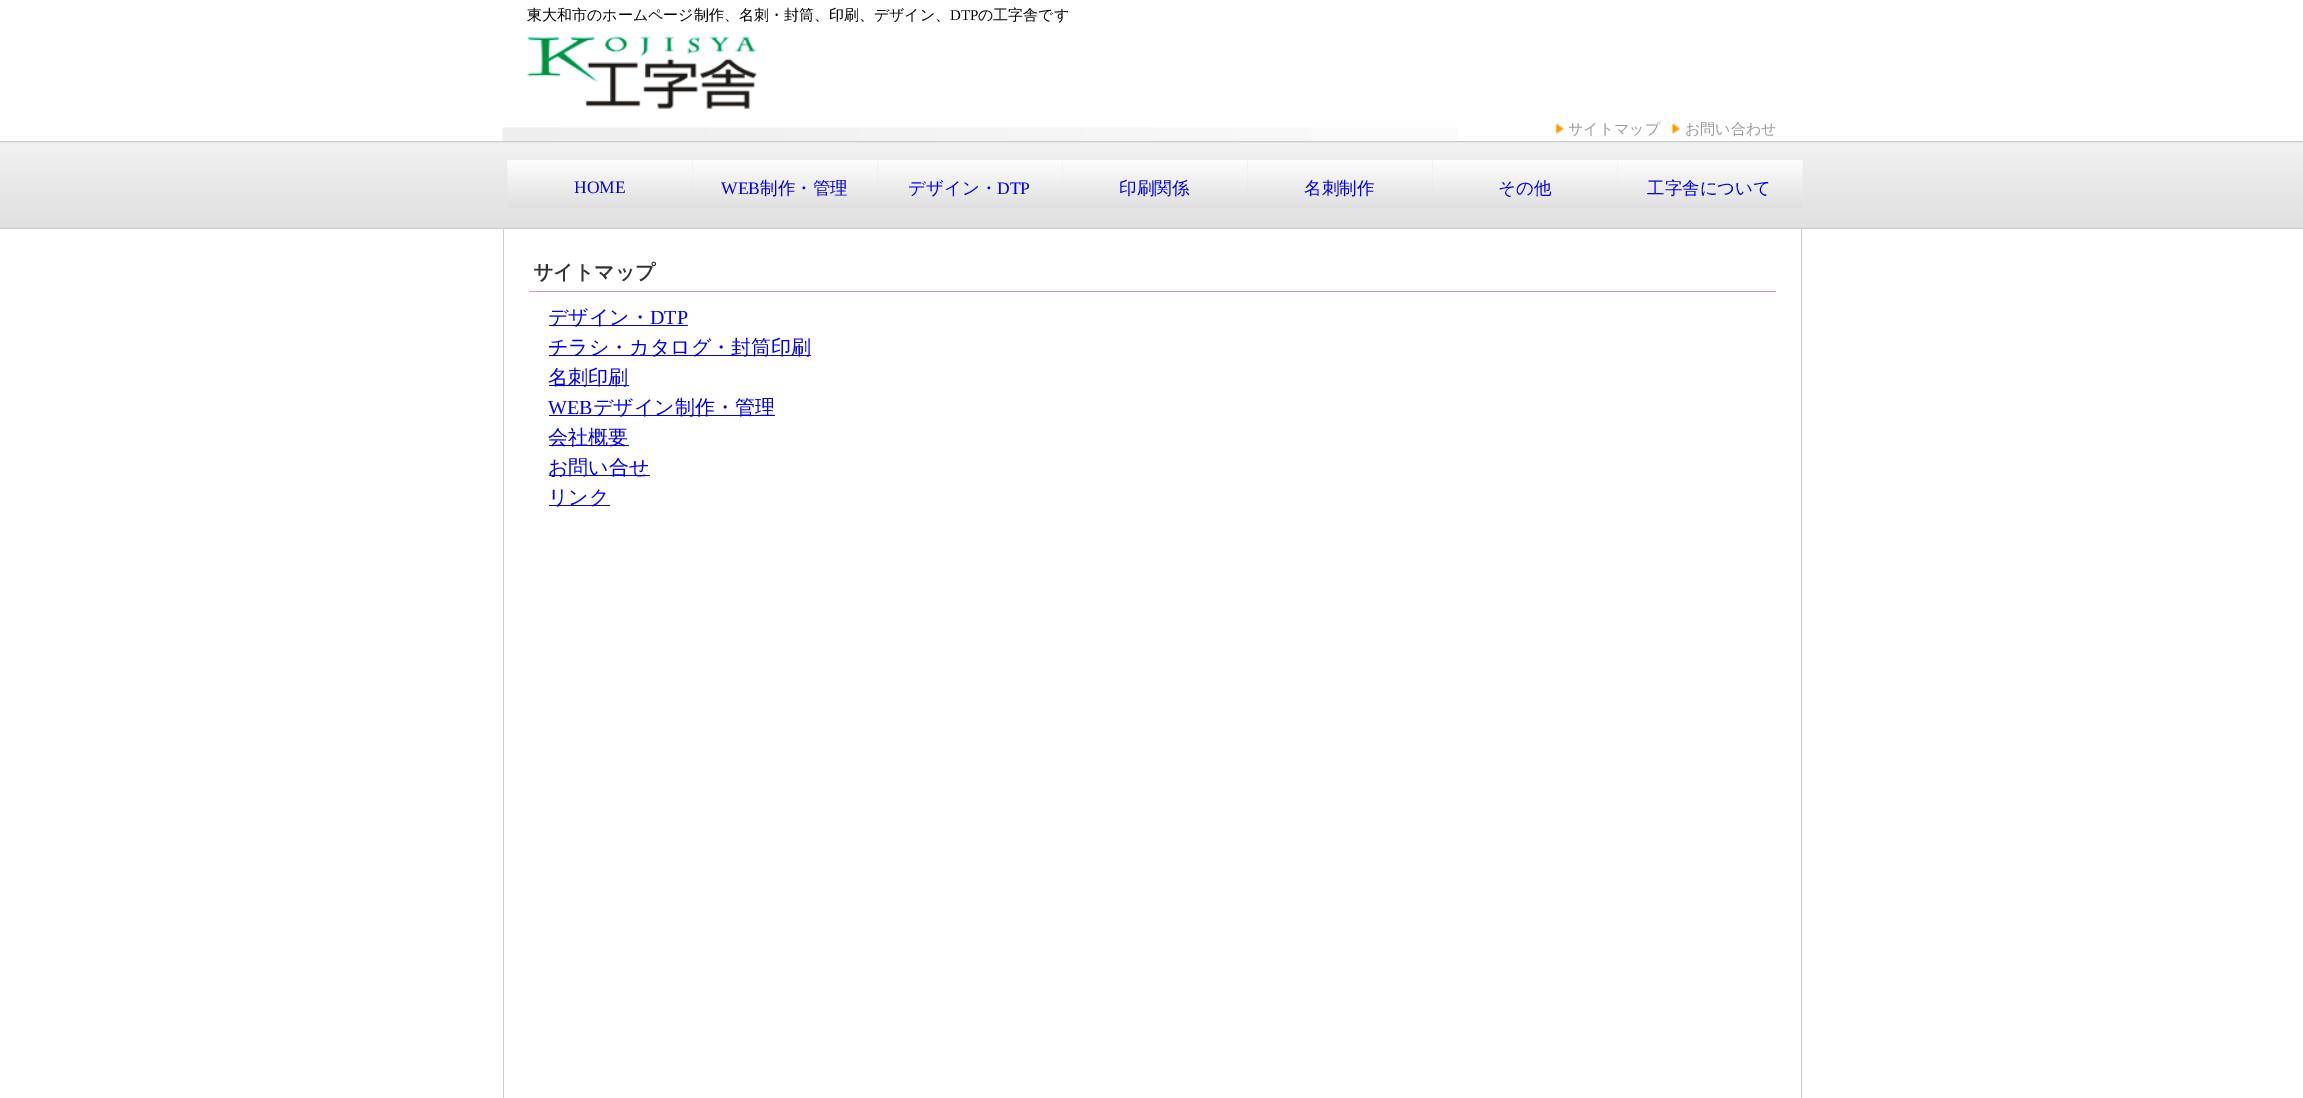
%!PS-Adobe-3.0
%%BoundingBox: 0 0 2303 1098
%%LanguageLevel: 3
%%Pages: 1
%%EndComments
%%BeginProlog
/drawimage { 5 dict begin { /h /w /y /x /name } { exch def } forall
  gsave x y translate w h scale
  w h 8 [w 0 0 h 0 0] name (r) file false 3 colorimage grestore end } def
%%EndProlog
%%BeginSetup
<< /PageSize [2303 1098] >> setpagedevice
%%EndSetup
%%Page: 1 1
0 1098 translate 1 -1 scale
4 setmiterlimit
1 setgray
0 0 2303 1098 rectfill
(images/1.raw) 527 36 230 73 drawimage
(images/2.raw) 502 127 956 14 drawimage
(images/3.raw) 1556 123 8 11 drawimage
(images/4.raw) 1672 123 9 11 drawimage
(images/5.raw) 0 142 2303 86 drawimage
0.8 setgray
0 141 2303 1 rectfill
0 228 2303 1 rectfill
(images/6.raw) 507 160 186 48 drawimage
(images/7.raw) 693 160 185 48 drawimage
(images/7.raw) 878 160 185 48 drawimage
(images/7.raw) 1063 160 185 48 drawimage
(images/7.raw) 1248 160 185 48 drawimage
(images/7.raw) 1433 160 185 48 drawimage
(images/7.raw) 1618 160 185 48 drawimage
1801 229 1 869 rectfill
503 229 1 869 rectfill
0.8 0.6 0.8 setrgbcolor
529 291 1247 1 rectfill
0 0 0.933 setrgbcolor
549 325 139 1 rectfill
549 355 262 1 rectfill
549 385 80 1 rectfill
549 415 226 1 rectfill
549 445 80 1 rectfill
549 475 101 1 rectfill
549 505 61 1 rectfill
/WenQuanYiZenHei-Medium [15 0 0 -15 0 0] selectfont
0 setgray
527 20 moveto (東大和市のホームページ制作、名刺・封筒、印刷、デザイン、) show
/LiberationSerif-Regular [15 0 0 -15 0 0] selectfont
950 20 moveto (DTP) show
/WenQuanYiZenHei-Medium [15 0 0 -15 0 0] selectfont
978 20 moveto (の工字舎です) show
0.6 setgray
1568 134 moveto (サイトマップ) show
1685 134 moveto (お問い合わせ) show
/LiberationSerif-Regular [17.5 0 0 -17.5 0 0] selectfont
0 0 0.933 setrgbcolor
574 193 moveto (HOME) show
721 194 moveto (WEB) show
/WenQuanYiZenHei-Medium [17.5 0 0 -17.5 0 0] selectfont
760 194 moveto (制作・管理) show
908 194 moveto (デザイン・) show
/LiberationSerif-Regular [17.5 0 0 -17.5 0 0] selectfont
997 194 moveto (DTP) show
/WenQuanYiZenHei-Medium [17.5 0 0 -17.5 0 0] selectfont
1119 194 moveto (印刷関係) show
1304 194 moveto (名刺制作) show
1498 194 moveto (その他) show
1647 194 moveto (工字舎について) show
/WenQuanYiZenHei-Bold [20 0 0 -20 0 0] selectfont
0.2 setgray
533 279 moveto (サイトマップ) show
/WenQuanYiZenHei-Medium [20 0 0 -20 0 0] selectfont
0 0 0.933 setrgbcolor
548 324 moveto (デザイン・) show
/LiberationSerif-Regular [20 0 0 -20 0 0] selectfont
650 324 moveto (DTP) show
/WenQuanYiZenHei-Medium [20 0 0 -20 0 0] selectfont
548 354 moveto (チラシ・カタログ・封筒印刷) show
548 384 moveto (名刺印刷) show
/LiberationSerif-Regular [20 0 0 -20 0 0] selectfont
548 414 moveto (WEB) show
/WenQuanYiZenHei-Medium [20 0 0 -20 0 0] selectfont
593 414 moveto (デザイン制作・管理) show
548 444 moveto (会社概要) show
548 474 moveto (お問い合せ) show
548 504 moveto (リンク) show
showpage
%%EOF
